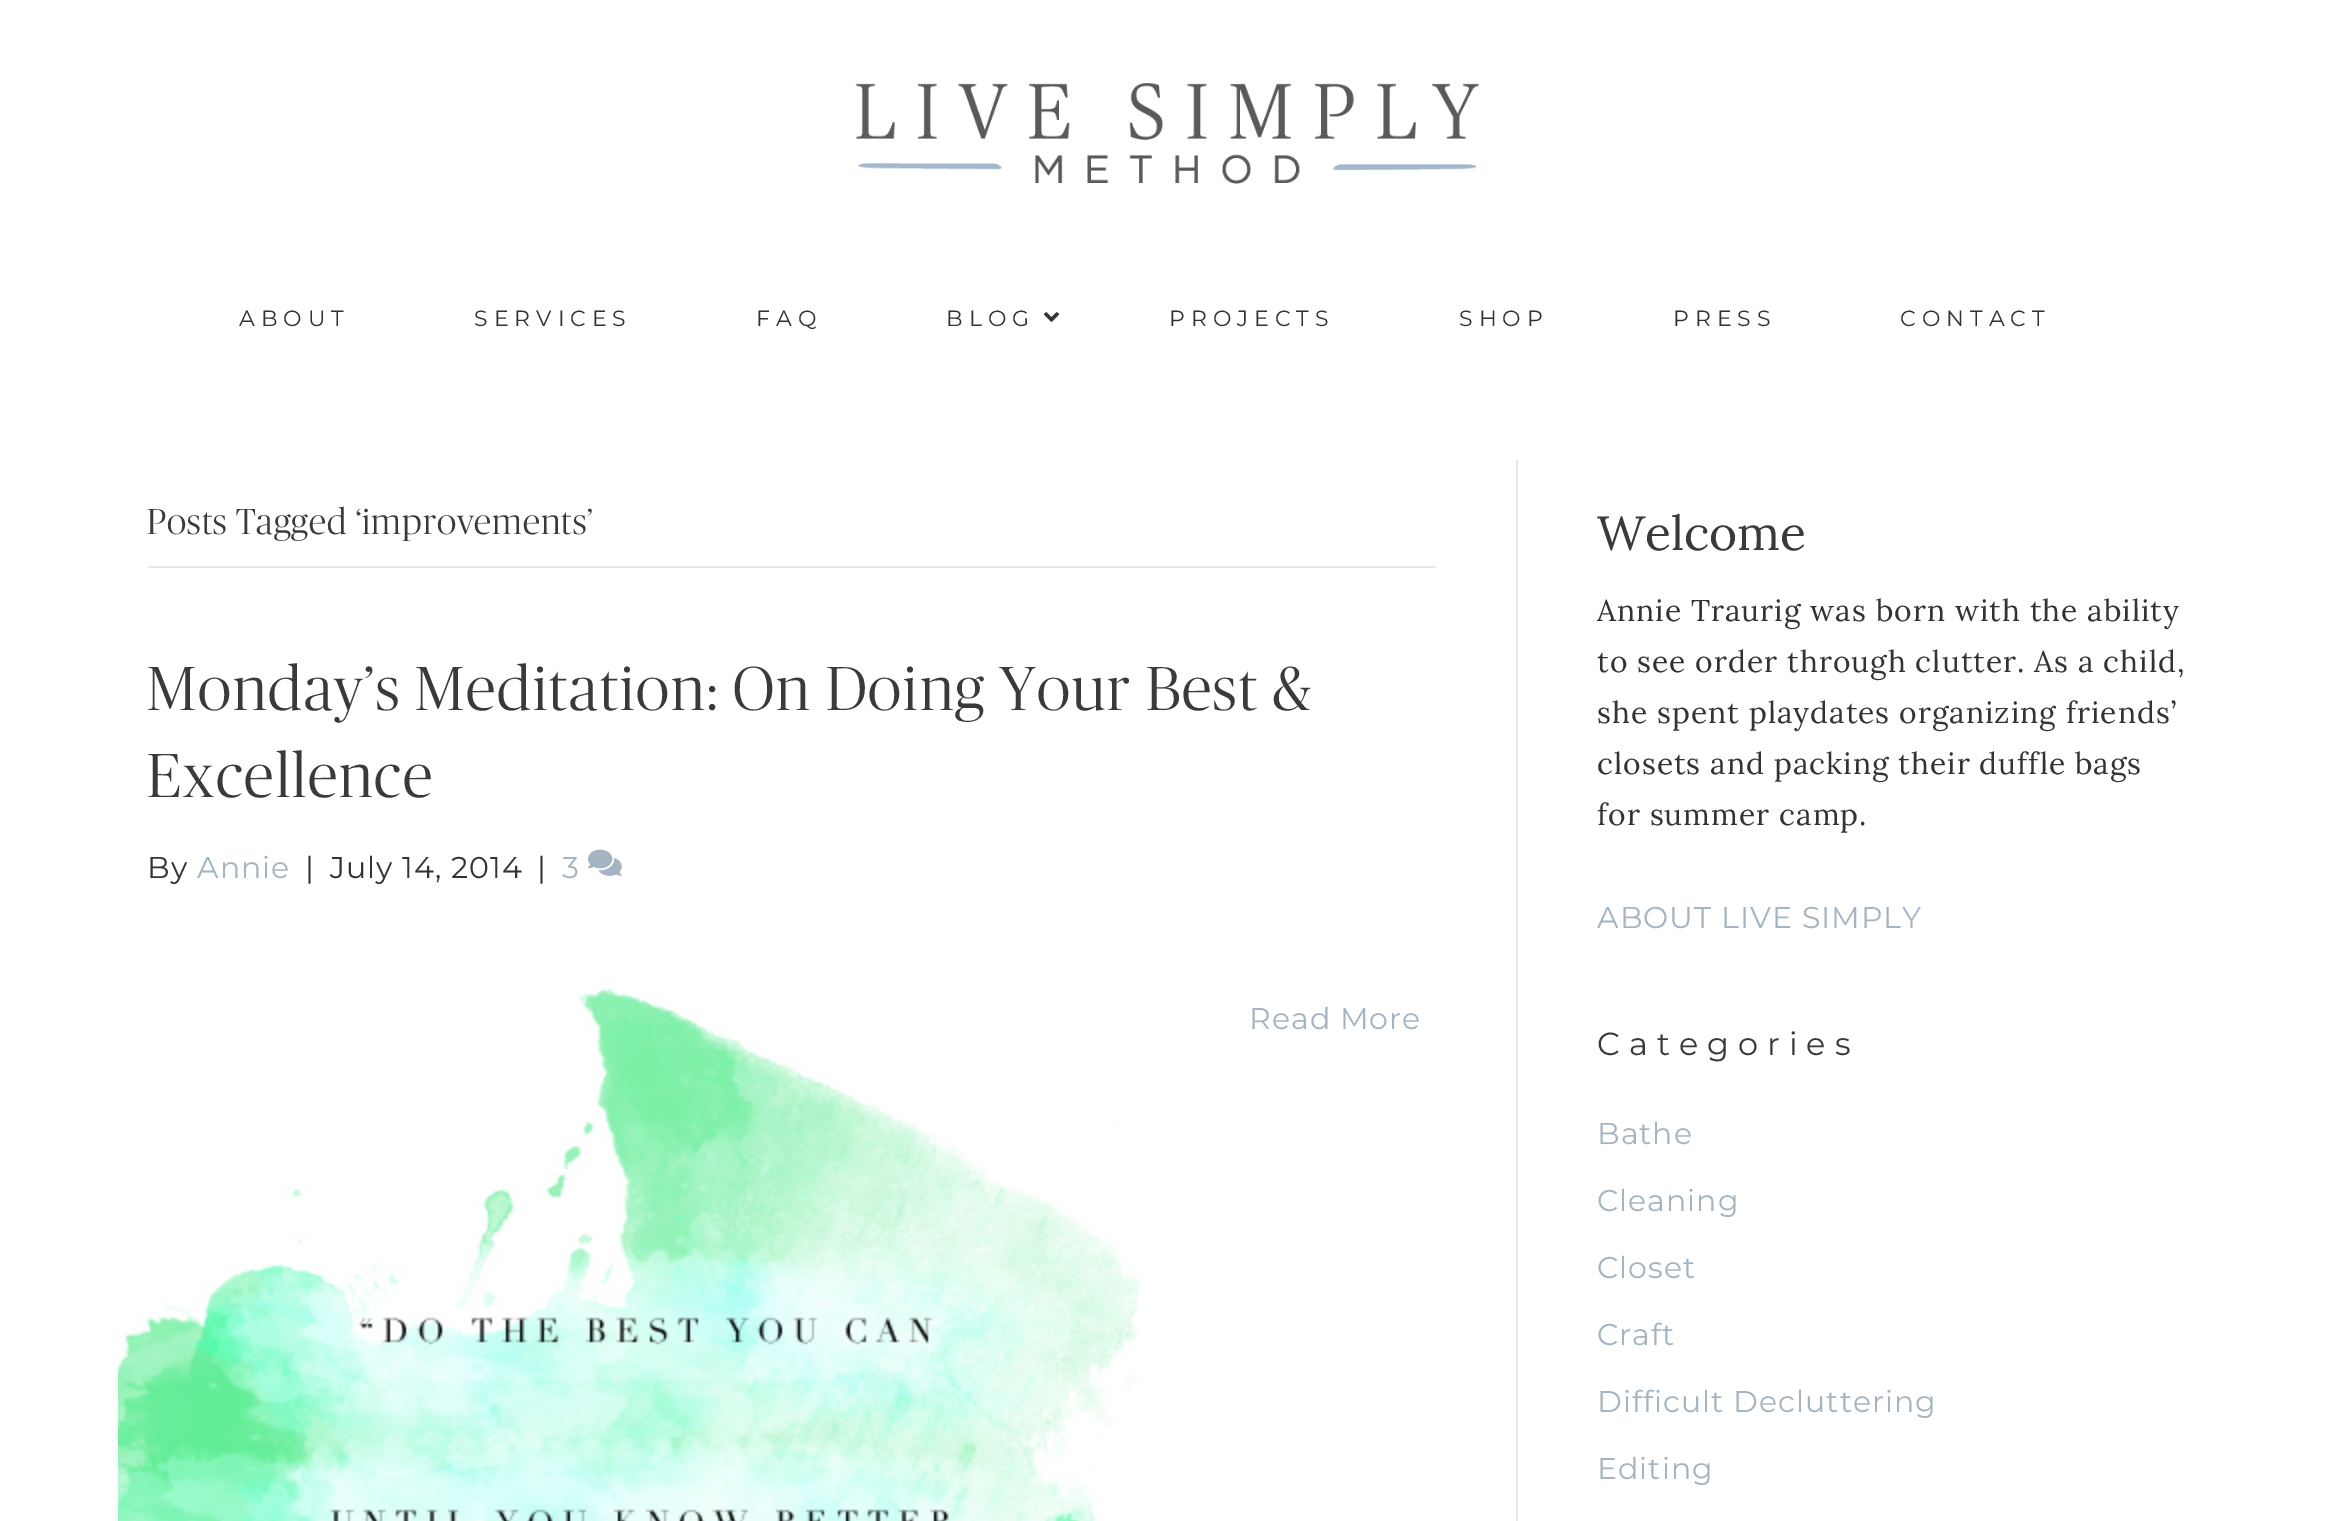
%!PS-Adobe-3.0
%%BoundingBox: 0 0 2333 1521
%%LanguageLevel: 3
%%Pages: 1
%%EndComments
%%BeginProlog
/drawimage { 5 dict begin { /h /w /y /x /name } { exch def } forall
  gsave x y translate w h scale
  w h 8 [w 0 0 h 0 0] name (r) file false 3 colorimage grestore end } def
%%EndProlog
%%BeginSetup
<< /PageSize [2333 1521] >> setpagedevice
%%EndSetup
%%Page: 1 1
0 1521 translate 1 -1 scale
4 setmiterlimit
1 setgray
0 0 2333 1521 rectfill
(images/1.raw) 855 83 624 101 drawimage
(images/2.raw) 1044 312 15 10 drawimage
0.902 setgray
1516 460 2 1061 rectfill
148 566 1288 2 rectfill
(images/3.raw) 588 849 34 27 drawimage
(images/4.raw) 118 988 1023 533 drawimage
/Montserrat-Regular [22 0 0 -22 0 0] selectfont
0.2 setgray
239 326 moveto 6 0 (ABOUT) ashow
474 326 moveto 6 0 (SERVICES) ashow
756 326 moveto 6 0 (FAQ) ashow
946 326 moveto 6 0 (BLOG) ashow
1169 326 moveto 6 0 (PROJECTS) ashow
1459 326 moveto 6 0 (SHOP) ashow
1673 326 moveto 6 0 (PRESS) ashow
1900 326 moveto 6 0 (CONTACT) ashow
/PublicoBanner-Light [36 0 0 -36 0 0] selectfont
0.227 setgray
147 534 moveto 1 0 (Posts Tagged ‘improvements’) ashow
/PublicoBanner-Light [62 0 0 -62 0 0] selectfont
147 710 moveto 2 0 (Monday’s Meditation: On Doing Your Best &) ashow
147 797 moveto 2 0 (Excellence) ashow
/Montserrat-Regular [30 0 0 -30 0 0] selectfont
0.2 setgray
147 878 moveto 1 0 (By) ashow
0.643 0.706 0.765 setrgbcolor
197 878 moveto 1 0 (Annie) ashow
0.2 setgray
305 878 moveto 1 0 (|) ashow
330 878 moveto 1 0 (July 14, 2014) ashow
537 878 moveto 1 0 (|) ashow
0.643 0.706 0.765 setrgbcolor
562 878 moveto 1 0 (3) ashow
1249 1029 moveto 1 0 (Read More) ashow
/Lora-Regular [48 0 0 -48 0 0] selectfont
0.227 setgray
1597 550 moveto (Welcome) show
/Lora-Regular [30 0 0 -30 0 0] selectfont
0.2 setgray
1597 621 moveto 1 0 (Annie Traurig was born with the ability) ashow
1597 672 moveto 1 0 (to see order through clutter. As a child,) ashow
1597 723 moveto 1 0 (she spent playdates organizing friends’) ashow
1597 774 moveto 1 0 (closets and packing their duffle bags) ashow
1597 825 moveto 1 0 (for summer camp.) ashow
/Montserrat-Regular [30 0 0 -30 0 0] selectfont
0.643 0.706 0.765 setrgbcolor
1597 928 moveto 1 0 (ABOUT LIVE SIMPLY) ashow
/Montserrat-Regular [32 0 0 -32 0 0] selectfont
0.227 setgray
1597 1055 moveto 9 0 (Categories) ashow
/Montserrat-Regular [30 0 0 -30 0 0] selectfont
0.643 0.706 0.765 setrgbcolor
1597 1144 moveto 1 0 (Bathe) ashow
1597 1211 moveto 1 0 (Cleaning) ashow
1597 1278 moveto 1 0 (Closet) ashow
1597 1345 moveto 1 0 (Craft) ashow
1597 1412 moveto 1 0 (Difficult Decluttering) ashow
1597 1479 moveto 1 0 (Editing) ashow
showpage
%%EOF
